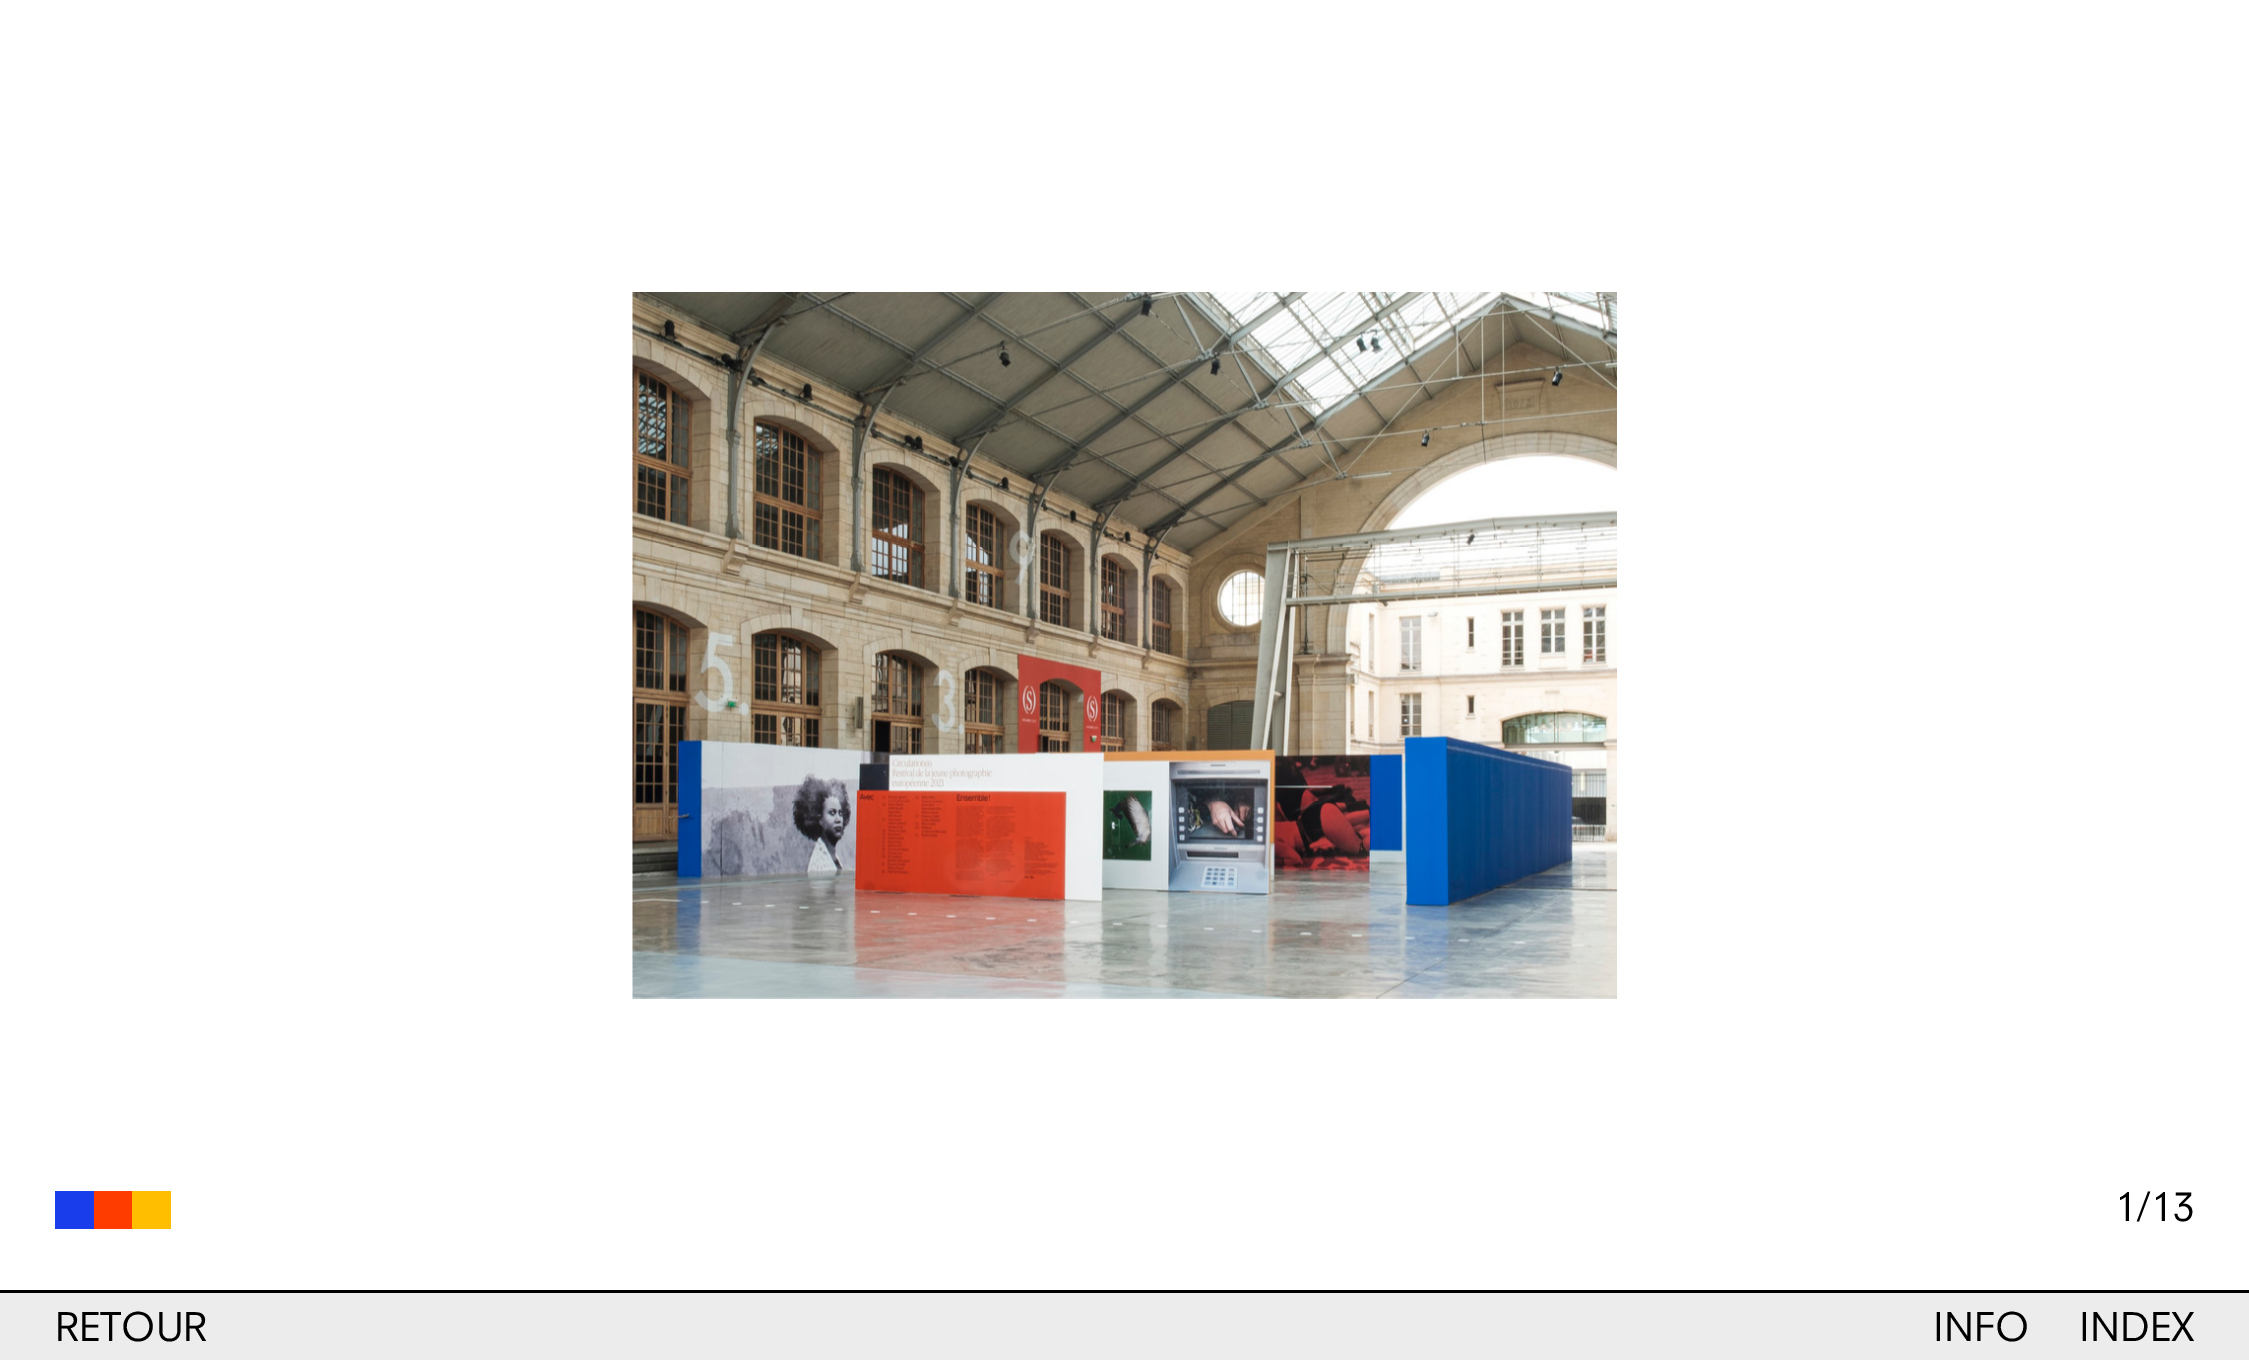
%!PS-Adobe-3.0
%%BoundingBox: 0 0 2249 1360
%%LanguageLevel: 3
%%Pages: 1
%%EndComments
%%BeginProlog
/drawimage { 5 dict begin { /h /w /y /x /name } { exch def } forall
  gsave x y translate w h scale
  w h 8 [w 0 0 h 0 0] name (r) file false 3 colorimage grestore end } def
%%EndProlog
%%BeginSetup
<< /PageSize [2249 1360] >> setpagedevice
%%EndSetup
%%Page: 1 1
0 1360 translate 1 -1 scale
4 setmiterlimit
1 setgray
0 0 2249 1360 rectfill
(images/1.raw) 632 292 985 707 drawimage
0.102 0.239 0.922 setrgbcolor
55 1191 39 38 rectfill
1 0.235 0 setrgbcolor
94 1191 38 38 rectfill
1 0.749 0 setrgbcolor
132 1191 39 38 rectfill
0.925 setgray
0 1293 2249 67 rectfill
0 setgray
0 1290 2249 3 rectfill
/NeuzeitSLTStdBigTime-Regular [38.5 0 0 -38.5 0 0] selectfont
2115 1221 moveto (1/13) show
55 1341 moveto (RETOUR) show
1933 1341 moveto (INFO) show
2079 1341 moveto (INDEX) show
showpage
%%EOF
